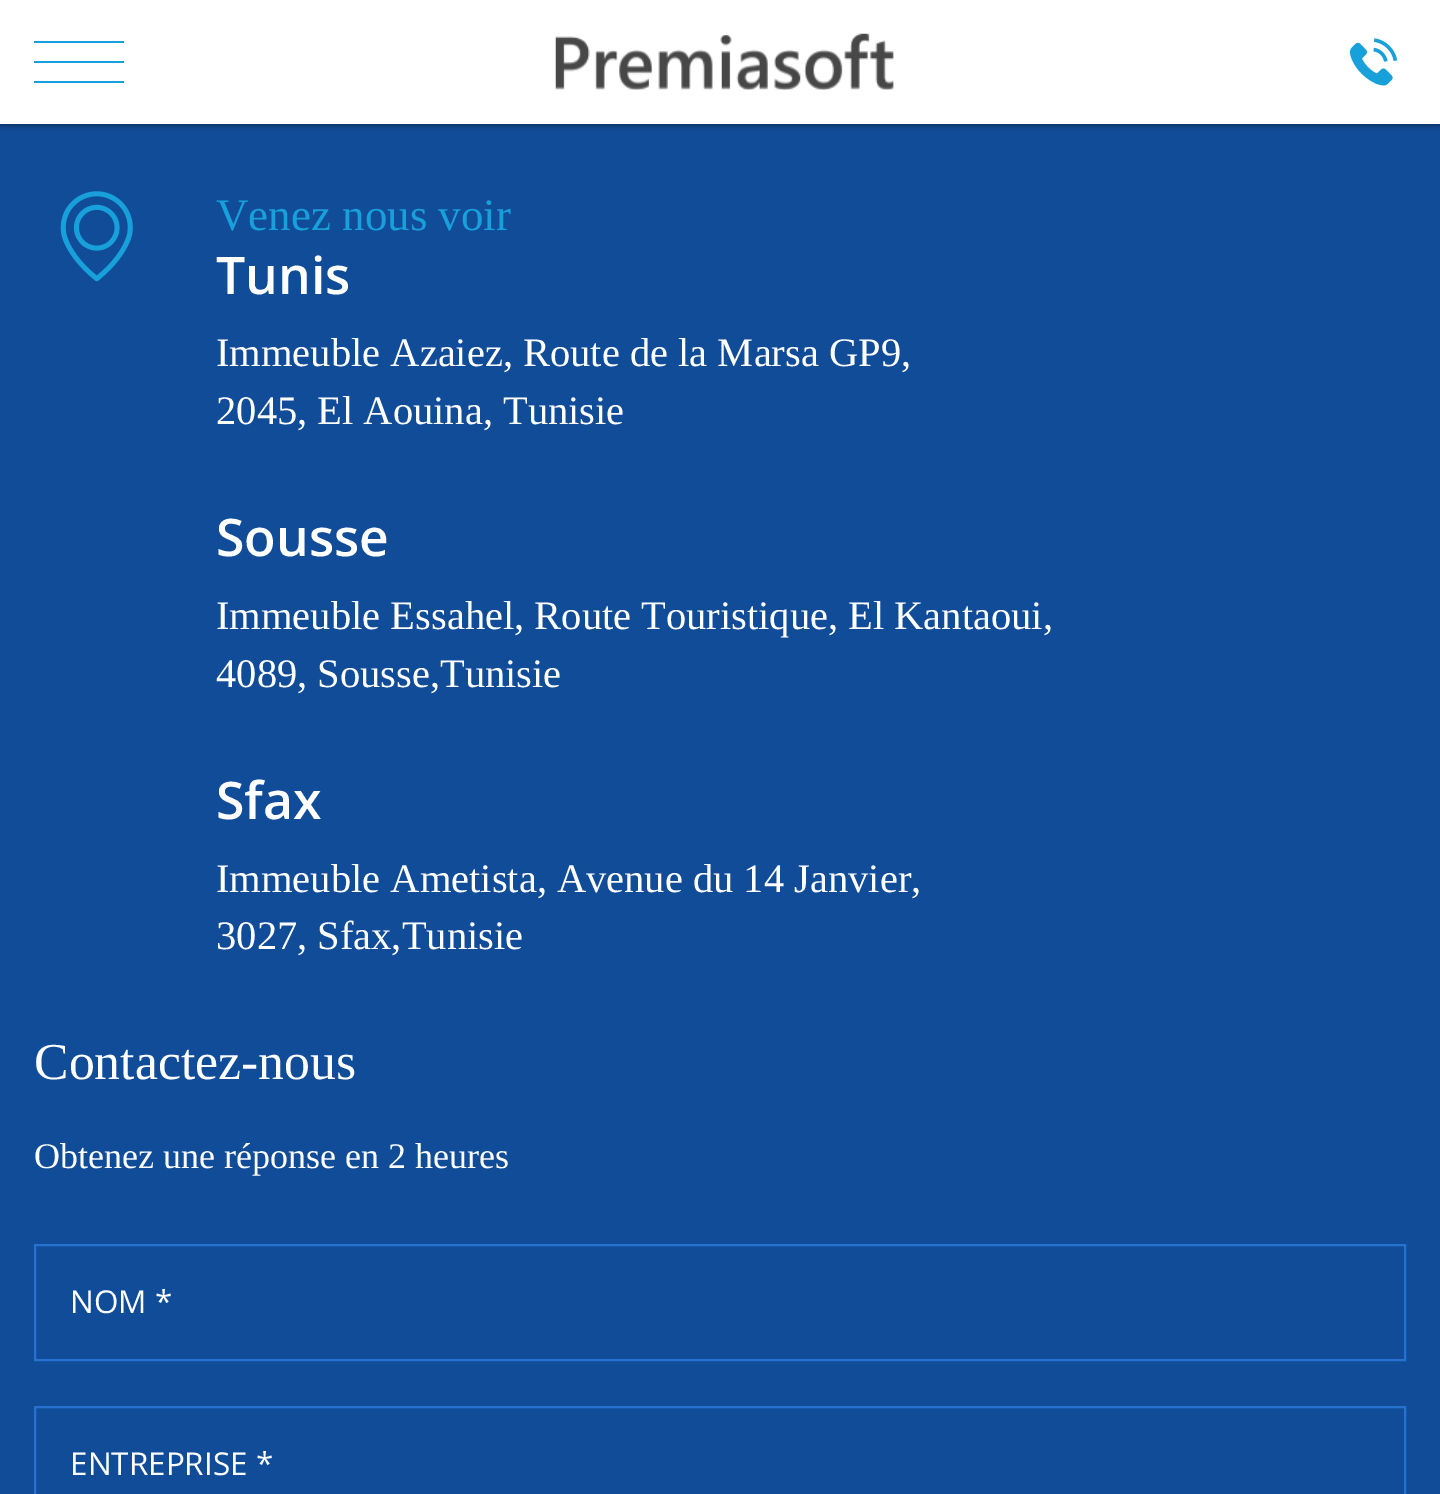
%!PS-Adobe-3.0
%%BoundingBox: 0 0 1440 1494
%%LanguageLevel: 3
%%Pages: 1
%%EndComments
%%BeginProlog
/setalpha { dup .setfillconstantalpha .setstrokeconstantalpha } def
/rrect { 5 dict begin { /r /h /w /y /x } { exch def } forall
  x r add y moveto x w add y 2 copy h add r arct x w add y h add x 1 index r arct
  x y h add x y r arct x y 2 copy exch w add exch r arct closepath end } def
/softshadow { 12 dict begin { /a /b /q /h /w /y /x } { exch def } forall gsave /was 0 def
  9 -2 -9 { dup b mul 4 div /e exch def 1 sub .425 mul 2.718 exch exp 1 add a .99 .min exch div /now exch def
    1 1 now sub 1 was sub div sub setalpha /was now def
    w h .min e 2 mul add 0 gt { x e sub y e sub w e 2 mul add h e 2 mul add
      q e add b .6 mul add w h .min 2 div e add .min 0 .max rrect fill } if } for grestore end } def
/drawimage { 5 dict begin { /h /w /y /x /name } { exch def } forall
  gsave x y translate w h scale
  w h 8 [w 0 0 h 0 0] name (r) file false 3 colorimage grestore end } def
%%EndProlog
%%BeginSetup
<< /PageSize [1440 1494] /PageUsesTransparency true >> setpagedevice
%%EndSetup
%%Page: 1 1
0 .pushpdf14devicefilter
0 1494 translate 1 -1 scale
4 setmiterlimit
0.063 0.298 0.596 setrgbcolor
0 0 1440 1494 rectfill
0 setgray
0 0 1440 124 0 3.5 0.6 softshadow
1 setgray
0 0 1440 124 rectfill
0.094 0.627 0.859 setrgbcolor
34 41 90 2 rectfill
34 61 90 2 rectfill
34 81 90 2 rectfill
(images/1.raw) 555 33 339 57 drawimage
(images/2.raw) 1350 38 48 48 drawimage
(images/3.raw) 60 191 73 91 drawimage
0.153 0.447 0.82 setrgbcolor
2 setlinewidth
35 1245 1370 115 rectstroke
35 1407 1370 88 rectstroke
/LiberationSerif-Regular [45 0 0 -45 0 0] selectfont
0.094 0.627 0.859 setrgbcolor
216 230 moveto (Venez nous voir) show
/OpenSans-SemiBold [51.75 0 0 -51.75 0 0] selectfont
1 setgray
216 294 moveto (Tunis) show
/LiberationSerif-Regular [40.5 0 0 -40.5 0 0] selectfont
216 366 moveto (Immeuble Azaiez, Route de la Marsa GP9,) show
216 424 moveto (2045, El Aouina, Tunisie) show
/OpenSans-SemiBold [51.75 0 0 -51.75 0 0] selectfont
216 556 moveto (Sousse) show
/LiberationSerif-Regular [40.5 0 0 -40.5 0 0] selectfont
216 629 moveto (Immeuble Essahel, Route Touristique, El Kantaoui,) show
216 687 moveto (4089, Sousse,Tunisie) show
/OpenSans-SemiBold [51.75 0 0 -51.75 0 0] selectfont
216 819 moveto (Sfax) show
/LiberationSerif-Regular [40.5 0 0 -40.5 0 0] selectfont
216 892 moveto (Immeuble Ametista, Avenue du 14 Janvier,) show
216 949 moveto (3027, Sfax,Tunisie) show
/LiberationSerif-Regular [51.75 0 0 -51.75 0 0] selectfont
34 1079 moveto (Contactez-nous) show
/LiberationSerif-Regular [36 0 0 -36 0 0] selectfont
34 1168 moveto (Obtenez une réponse en 2 heures) show
/OpenSans-Regular [31.5 0 0 -31.5 0 0] selectfont
70 1313 moveto (NOM *) show
70 1475 moveto (ENTREPRISE *) show
.poppdf14devicefilter showpage
%%EOF
